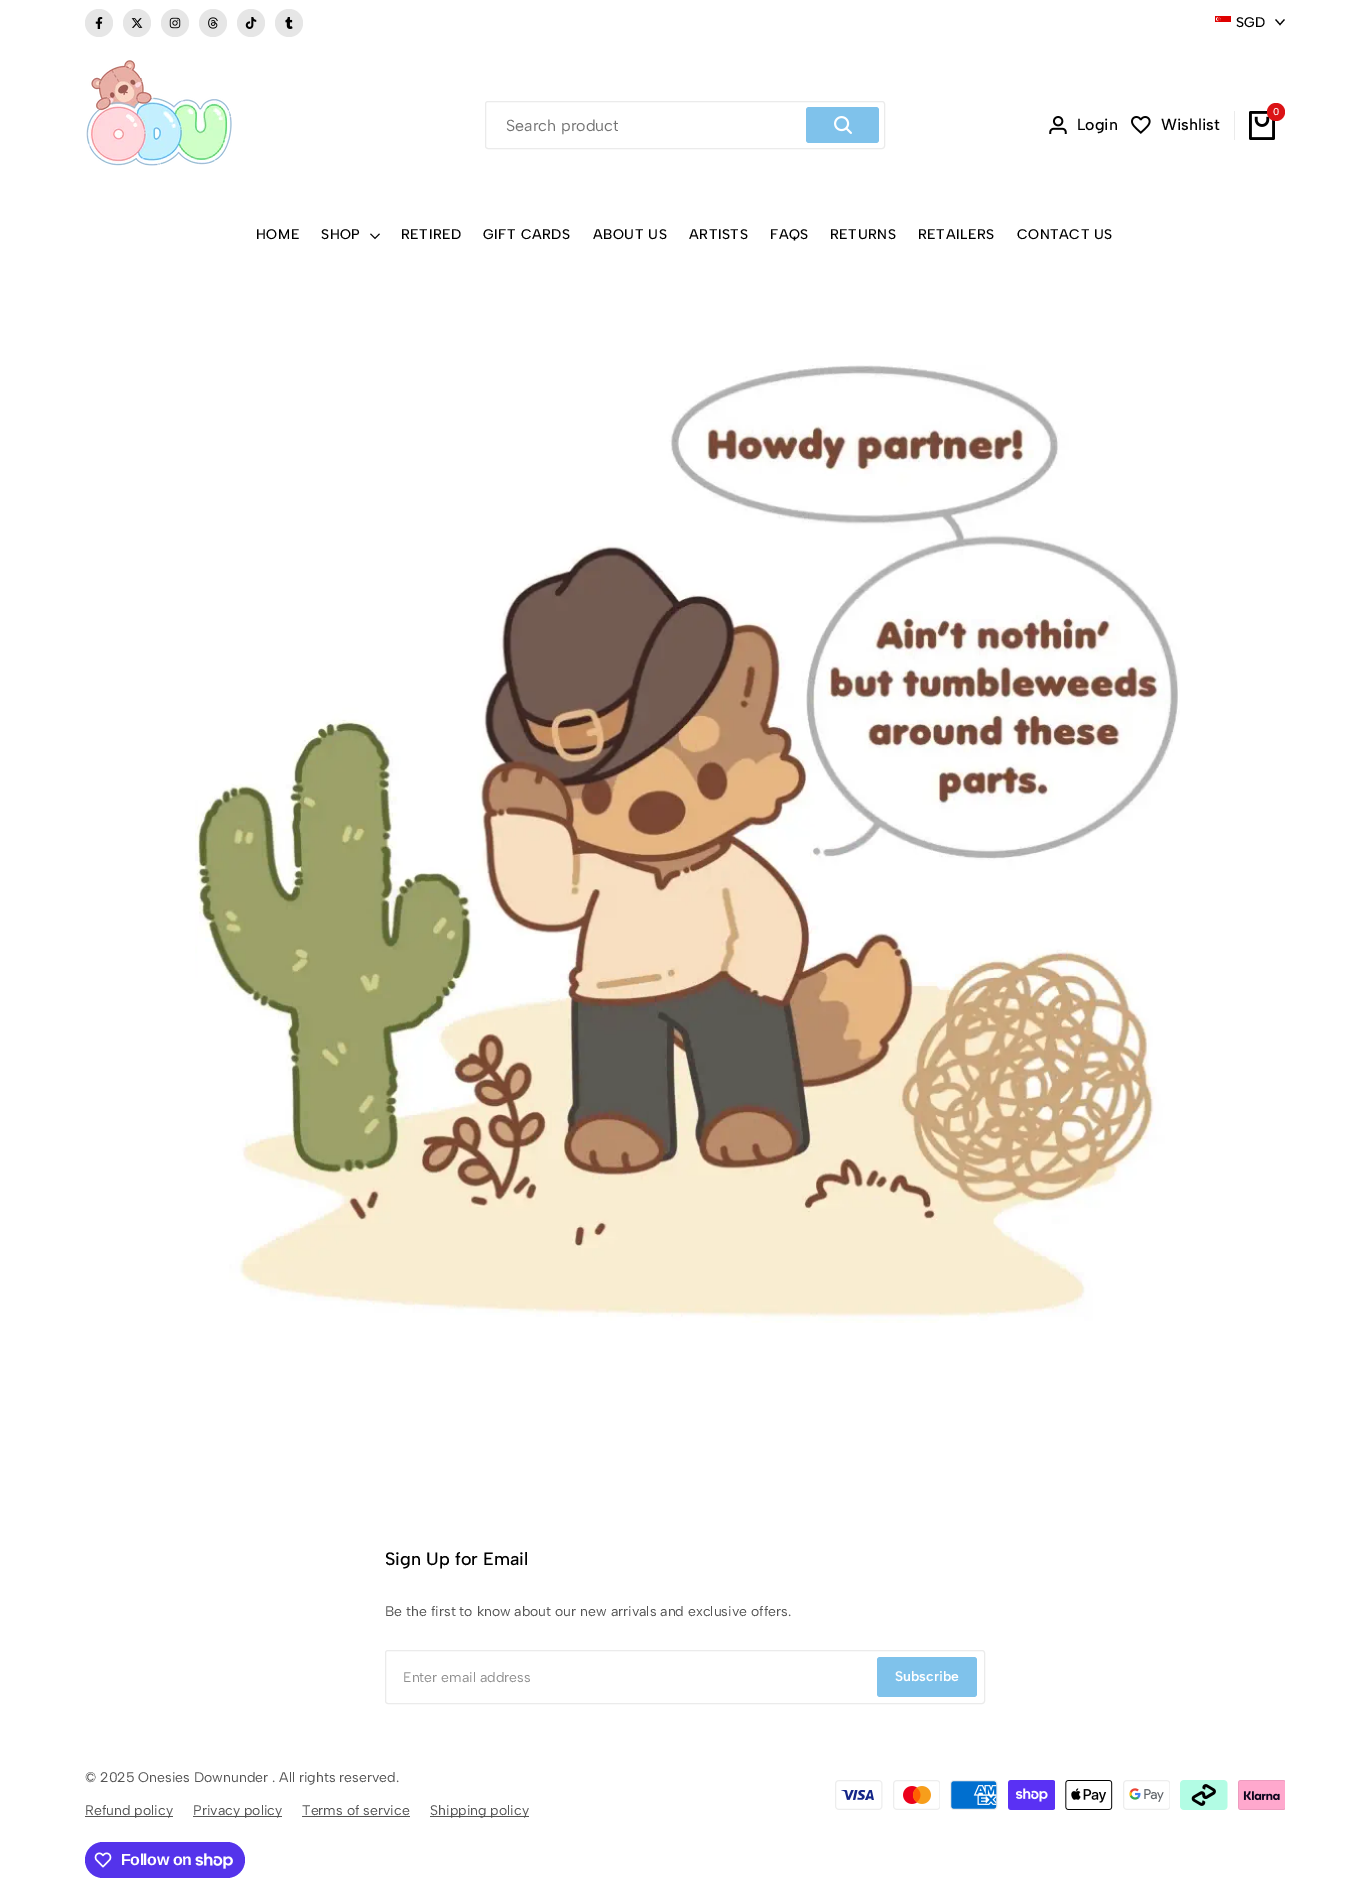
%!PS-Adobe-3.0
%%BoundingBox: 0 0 1370 1901
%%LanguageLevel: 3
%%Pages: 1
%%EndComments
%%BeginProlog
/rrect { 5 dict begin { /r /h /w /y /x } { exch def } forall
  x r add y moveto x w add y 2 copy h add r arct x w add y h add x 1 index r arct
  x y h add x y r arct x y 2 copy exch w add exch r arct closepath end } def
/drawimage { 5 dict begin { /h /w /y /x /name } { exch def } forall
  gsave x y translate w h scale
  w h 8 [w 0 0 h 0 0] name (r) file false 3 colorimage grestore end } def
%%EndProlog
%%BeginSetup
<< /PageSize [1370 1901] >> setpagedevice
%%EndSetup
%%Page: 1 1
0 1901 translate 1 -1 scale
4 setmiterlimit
1 setgray
0 0 1370 1901 rectfill
0.902 setgray
newpath 99 23 14 0 360 arc closepath fill
(images/1.raw) 95 17 8 12 drawimage
newpath 137 23 14 0 360 arc closepath fill
(images/2.raw) 131 18 12 10 drawimage
newpath 175 23 14 0 360 arc closepath fill
(images/3.raw) 169 17 12 12 drawimage
newpath 213 23 14 0 360 arc closepath fill
(images/4.raw) 208 17 10 12 drawimage
newpath 251 23 14 0 360 arc closepath fill
(images/5.raw) 245 17 12 12 drawimage
newpath 289 23 14 0 360 arc closepath fill
(images/6.raw) 285 17 8 12 drawimage
(images/7.raw) 1215 16 16 6 drawimage
0 setgray
1.1 setlinewidth
2 setlinecap
newpath 1284 20 moveto 1280 24.5 lineto 1276 20 lineto stroke
(images/8.raw) 86 60 146 106 drawimage
0.922 setgray
1 setlinewidth
0 setlinecap
485.5 101.5 399 47 2.5 rrect stroke
0.498 0.761 0.922 setrgbcolor
806 107 73 36 3 rrect fill
(images/9.raw) 834 116 18 18 drawimage
0.922 setgray
1234 111 1 29 rectfill
(images/10.raw) 1249 111 26 29 drawimage
0.859 0.071 0.082 setrgbcolor
newpath 1276 112 9 0 360 arc closepath fill
(images/11.raw) 1049 116 18 18 drawimage
(images/12.raw) 1131 116 20 18 drawimage
(images/13.raw) 370 233 10 7 drawimage
(images/14.raw) 195 365 985 958 drawimage
0.922 setgray
385.5 1650.5 599 53 2.5 rrect stroke
0.498 0.761 0.922 setrgbcolor
877 1657 100 40 3 rrect fill
0.329 setgray
85 1816 88 1 rectfill
193 1816 89 1 rectfill
302 1816 108 1 rectfill
430 1816 99 1 rectfill
(images/15.raw) 835 1780 48 30 drawimage
(images/16.raw) 893 1780 47 30 drawimage
(images/17.raw) 950 1780 48 30 drawimage
(images/18.raw) 1008 1780 47 30 drawimage
(images/19.raw) 1065 1780 48 30 drawimage
(images/20.raw) 1123 1780 47 30 drawimage
(images/21.raw) 1180 1780 48 30 drawimage
(images/22.raw) 1238 1780 47 30 drawimage
0.329 0.2 0.922 setrgbcolor
85 1842 160 36 18 rrect fill
(images/23.raw) 94 1852 18 16 drawimage
(images/24.raw) 195 1853 38 16 drawimage
/AlbertSans-Medium [14 0 0 -14 0 0] selectfont
0 setgray
1236 27 moveto (SGD) show
/AlbertSans-Regular [16 0 0 -16 0 0] selectfont
0.459 setgray
506 131 moveto (Search product) show
/AlbertSans-Medium [10 0 0 -10 0 0] selectfont
1 setgray
1273 115 moveto (0) show
/AlbertSans-Medium [16 0 0 -16 0 0] selectfont
0 setgray
1077 130 moveto (Login) show
1161 130 moveto (Wishlist) show
/AlbertSans-Medium [14 0 0 -14 0 0] selectfont
256 239 moveto 0.5 0 (HOME) ashow
321 239 moveto 0.5 0 (SHOP) ashow
401 239 moveto 0.5 0 (RETIRED) ashow
483 239 moveto 0.5 0 (GIFT CARDS) ashow
593 239 moveto 0.5 0 (ABOUT US) ashow
689 239 moveto 0.5 0 (ARTISTS) ashow
770 239 moveto 0.5 0 (FAQS) ashow
830 239 moveto 0.5 0 (RETURNS) ashow
918 239 moveto 0.5 0 (RETAILERS) ashow
1017 239 moveto 0.5 0 (CONTACT US) ashow
/AlbertSans-Medium [18 0 0 -18 0 0] selectfont
385 1565 moveto (Sign Up for Email) show
/AlbertSans-Regular [14 0 0 -14 0 0] selectfont
0.329 setgray
385 1616 moveto (Be the first to know about our new arrivals and exclusive offers.) show
0.565 setgray
403 1682 moveto (Enter email address) show
/AlbertSans-SemiBold [14 0 0 -14 0 0] selectfont
1 setgray
895 1681 moveto (Subscribe) show
/AlbertSans-Regular [14 0 0 -14 0 0] selectfont
0.329 setgray
85 1782 moveto (© 2025 Onesies Downunder . All rights reserved.) show
85 1815 moveto (Refund policy) show
193 1815 moveto (Privacy policy) show
302 1815 moveto (Terms of service) show
430 1815 moveto (Shipping policy) show
/LiberationSans-Bold [16 0 0 -16 0 0] selectfont
1 setgray
121 1865 moveto -0.5 0 (Follow on) ashow
showpage
%%EOF
